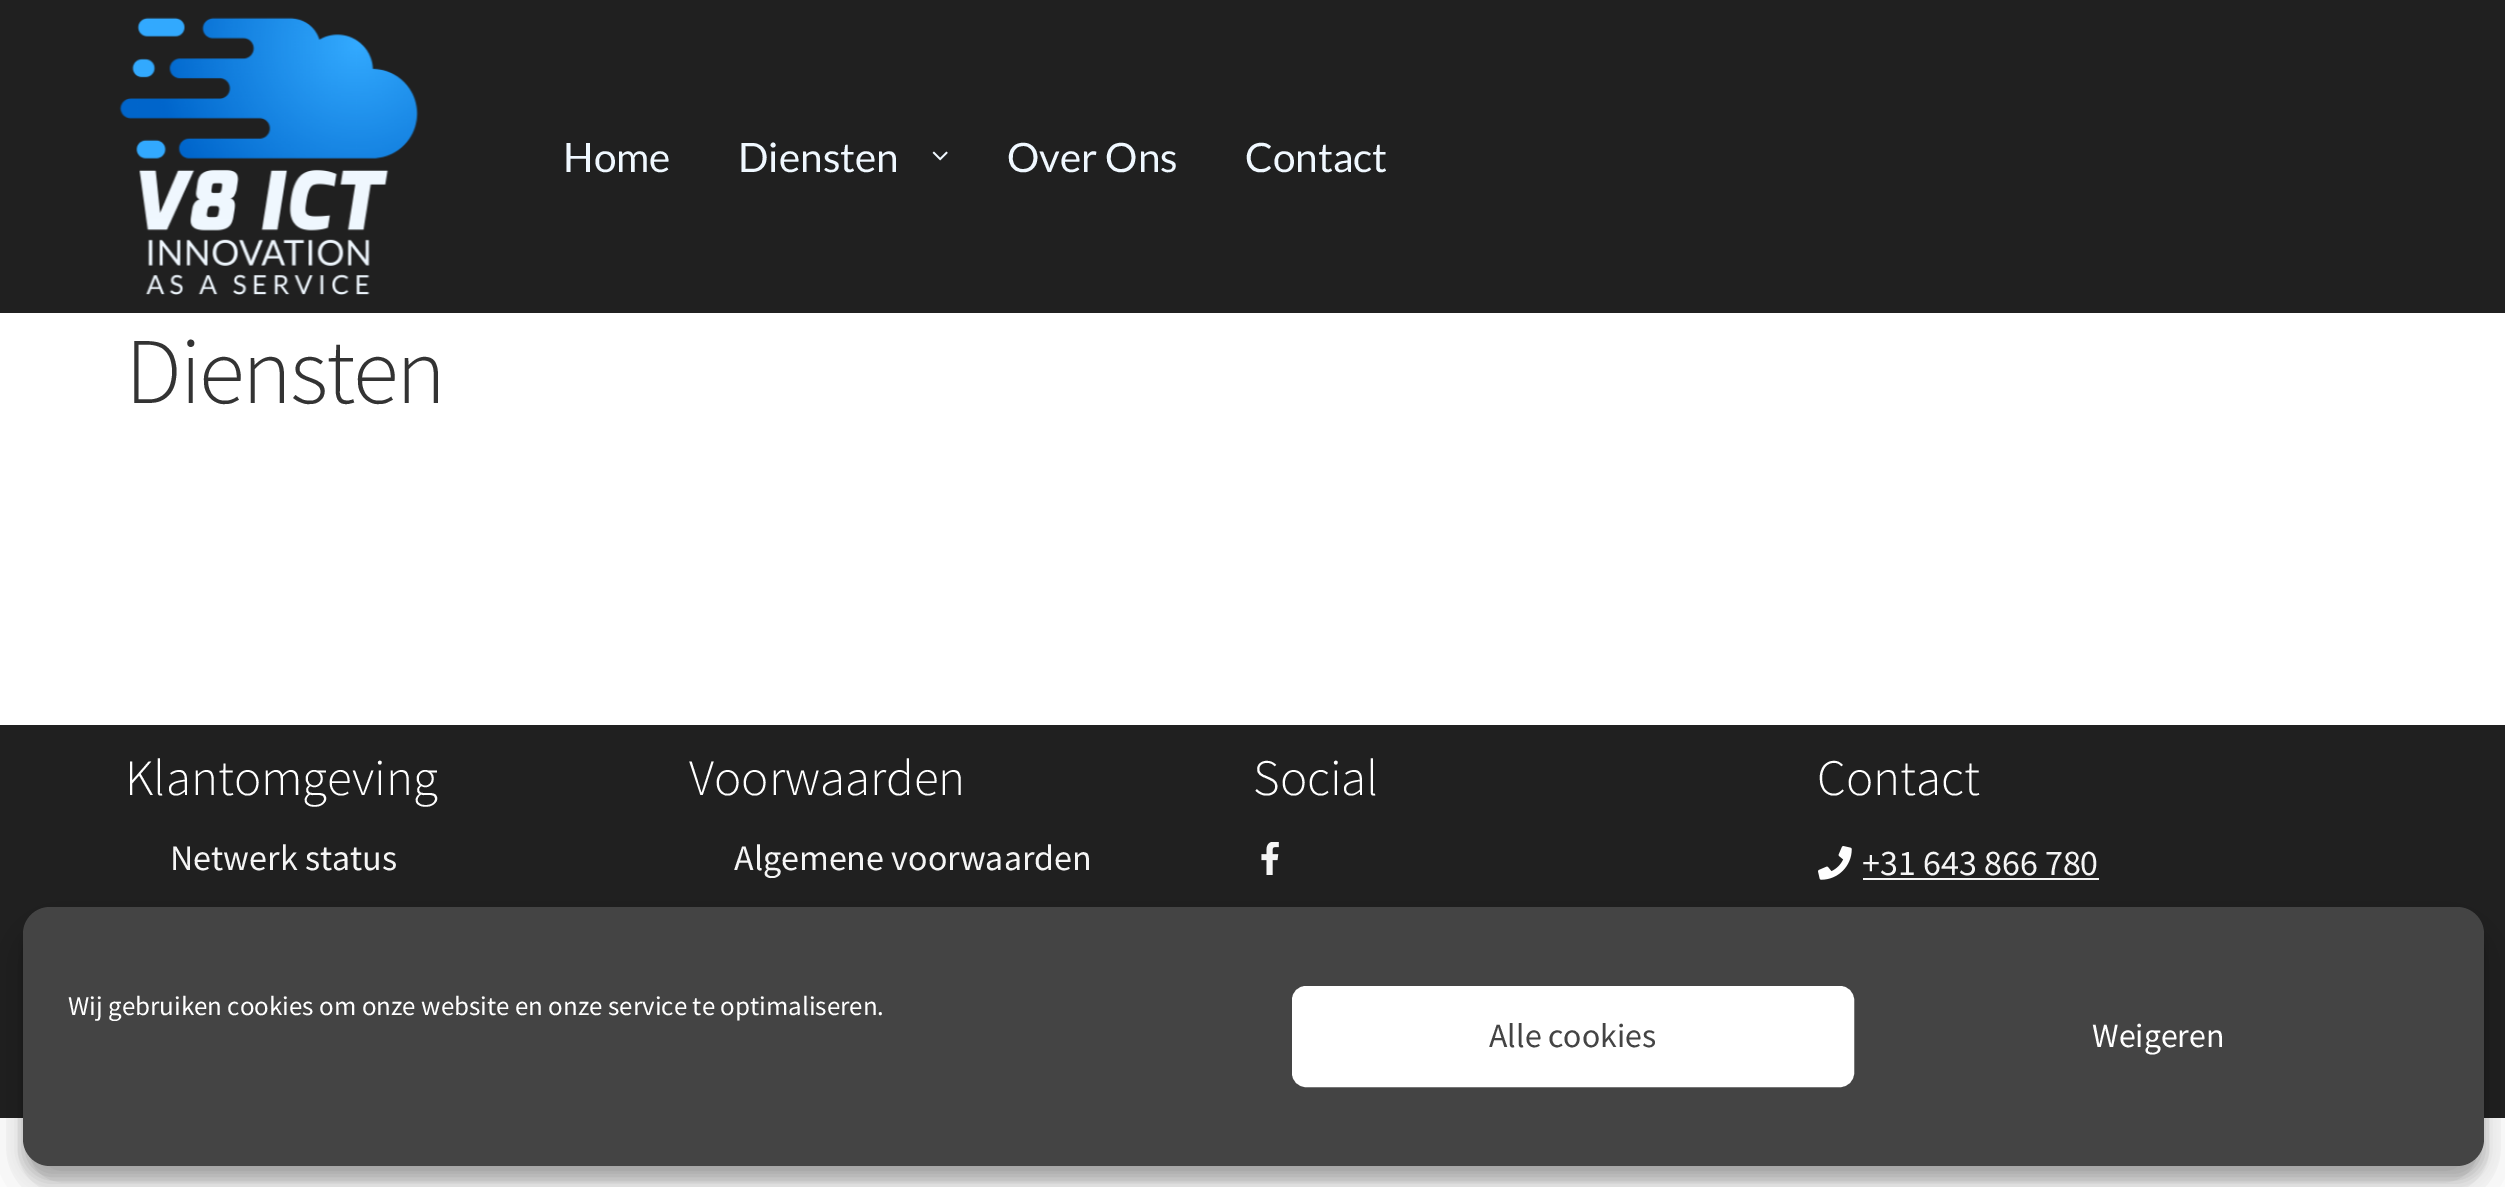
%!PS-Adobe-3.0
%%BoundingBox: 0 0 2505 1187
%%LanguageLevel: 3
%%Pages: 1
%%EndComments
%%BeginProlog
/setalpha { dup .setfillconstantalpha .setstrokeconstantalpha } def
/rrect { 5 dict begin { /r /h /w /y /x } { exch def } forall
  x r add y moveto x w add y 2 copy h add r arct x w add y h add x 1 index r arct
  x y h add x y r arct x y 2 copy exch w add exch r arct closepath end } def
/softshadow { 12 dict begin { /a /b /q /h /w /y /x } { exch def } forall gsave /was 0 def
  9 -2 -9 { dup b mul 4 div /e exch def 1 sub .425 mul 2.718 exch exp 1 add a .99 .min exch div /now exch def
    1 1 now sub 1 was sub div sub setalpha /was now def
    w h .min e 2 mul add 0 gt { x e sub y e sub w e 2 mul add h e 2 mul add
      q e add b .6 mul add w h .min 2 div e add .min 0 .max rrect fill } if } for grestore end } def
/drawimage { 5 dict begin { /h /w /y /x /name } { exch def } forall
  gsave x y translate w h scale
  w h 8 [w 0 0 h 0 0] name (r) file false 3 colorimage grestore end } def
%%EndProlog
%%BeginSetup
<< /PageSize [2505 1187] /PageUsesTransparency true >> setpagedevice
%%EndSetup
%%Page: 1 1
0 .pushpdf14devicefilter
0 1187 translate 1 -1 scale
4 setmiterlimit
1 setgray
0 0 2505 1187 rectfill
0.125 setgray
0 0 2505 313 rectfill
(images/1.raw) 119 17 300 278 drawimage
(images/2.raw) 932 151 16 10 drawimage
0 725 2505 393 rectfill
(images/3.raw) 1261 842 18 33 drawimage
(images/4.raw) 1818 846 34 34 drawimage
0.961 setgray
1863 878 236 2 rectfill
0 setgray
23 920 2461 259 27 7 0.23 softshadow
23 929 2461 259 27 22.5 0.19 softshadow
0.267 setgray
23 907 2461 259 27 rrect fill
1 setgray
1293 987 560 99 13 rrect gsave fill grestore
2 setlinewidth
stroke
/Lato-Regular [40.5 0 0 -40.5 0 0] selectfont
0.941 0.973 1 setrgbcolor
563 172 moveto (Home) show
738 172 moveto (Diensten) show
1007 172 moveto (Over Ons) show
1245 172 moveto (Contact) show
/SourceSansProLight-Light [94 0 0 -94 0 0] selectfont
0.2 setgray
125 403 moveto -2.25 0 (Diensten) ashow
/SourceSansProLight-Light [51 0 0 -51 0 0] selectfont
1 setgray
125 795 moveto (Klantomgeving) show
/SourceSansPro-Regular [36 0 0 -36 0 0] selectfont
0.961 setgray
170 870 moveto (Netwerk status) show
/SourceSansProLight-Light [51 0 0 -51 0 0] selectfont
1 setgray
689 795 moveto (Voorwaarden) show
/SourceSansPro-Regular [36 0 0 -36 0 0] selectfont
0.961 setgray
734 870 moveto (Algemene voorwaarden) show
/SourceSansProLight-Light [51 0 0 -51 0 0] selectfont
1 setgray
1253 795 moveto (Social) show
1817 795 moveto (Contact) show
/SourceSansPro-Regular [36 0 0 -36 0 0] selectfont
0.961 setgray
1862 875 moveto (+31 643 866 780) show
/SourceSansPro-Regular [27 0 0 -27 0 0] selectfont
1 setgray
68 1015 moveto (Wij gebruiken cookies om onze website en onze service te optimaliseren.) show
/SourceSansPro-Regular [33.75 0 0 -33.75 0 0] selectfont
0.267 setgray
1489 1047 moveto (Alle cookies) show
1 setgray
2092 1047 moveto (Weigeren) show
.poppdf14devicefilter showpage
%%EOF
